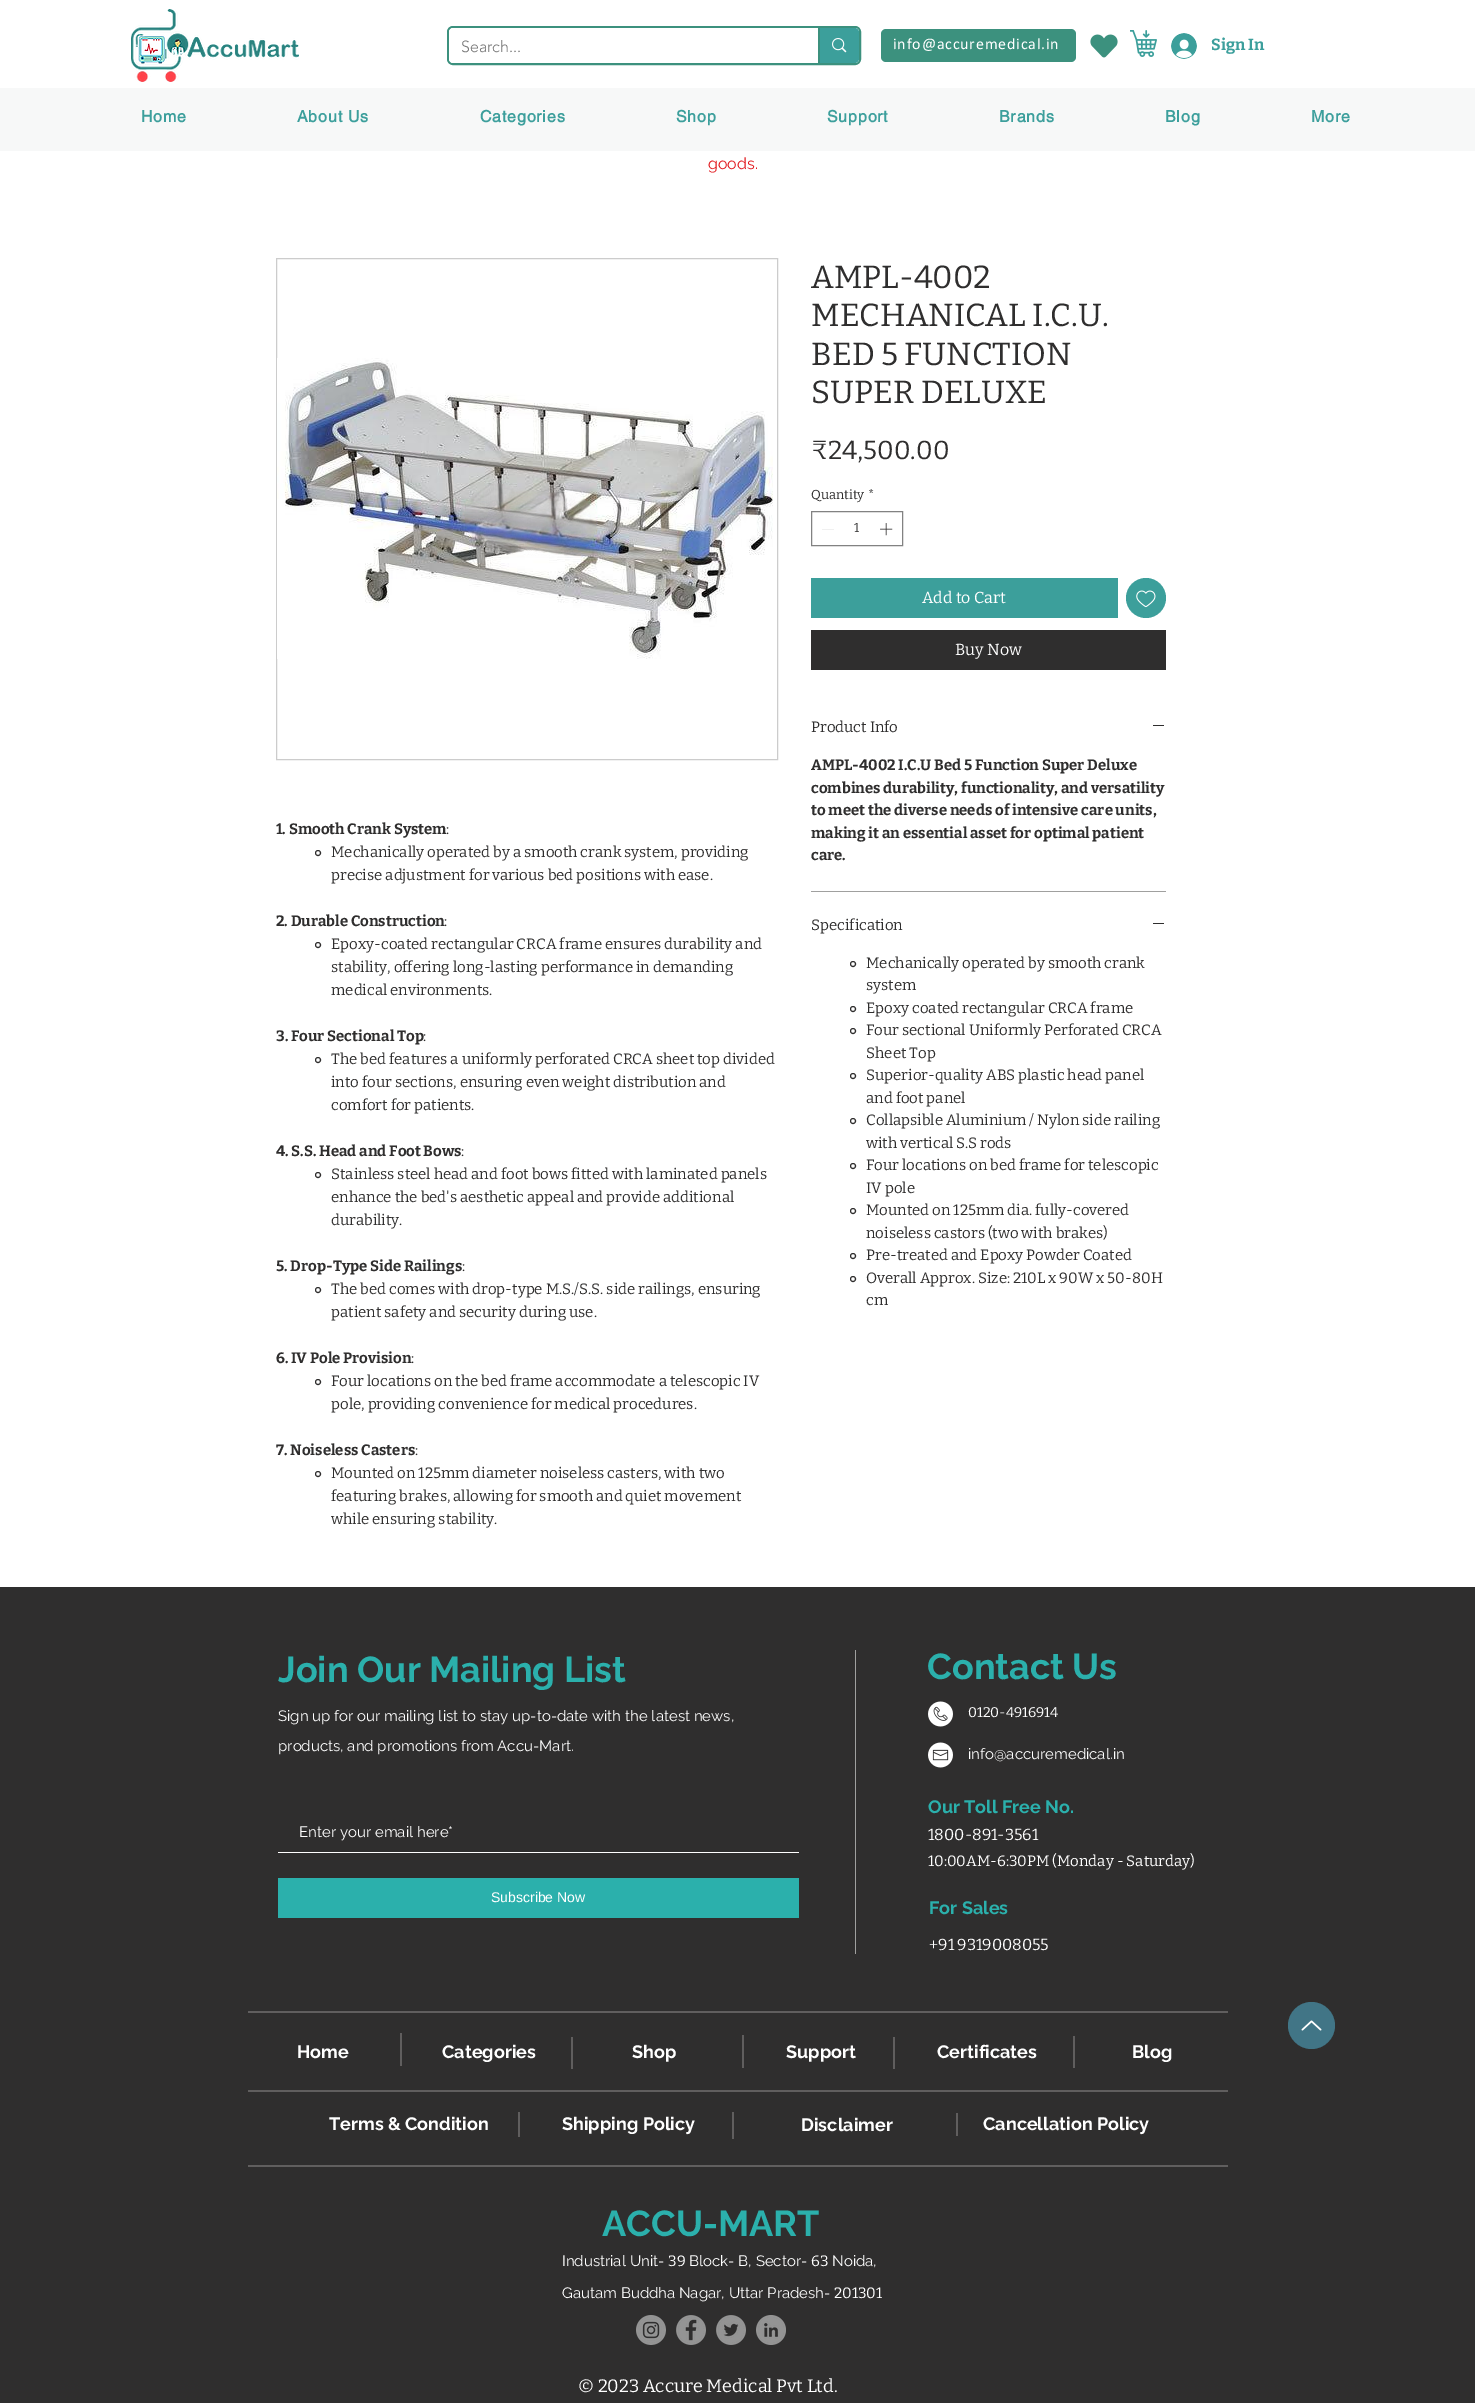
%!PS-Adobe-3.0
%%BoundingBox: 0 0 1475 2403
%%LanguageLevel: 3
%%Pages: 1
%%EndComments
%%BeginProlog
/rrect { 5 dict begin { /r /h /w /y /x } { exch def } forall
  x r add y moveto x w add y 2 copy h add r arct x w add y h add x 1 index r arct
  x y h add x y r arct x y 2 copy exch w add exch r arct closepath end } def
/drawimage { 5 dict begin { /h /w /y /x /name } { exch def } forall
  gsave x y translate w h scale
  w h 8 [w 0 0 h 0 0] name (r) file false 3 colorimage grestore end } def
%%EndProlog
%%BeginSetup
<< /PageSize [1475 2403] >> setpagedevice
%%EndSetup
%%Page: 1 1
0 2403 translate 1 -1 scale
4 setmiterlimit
1 setgray
0 0 1475 2403 rectfill
(images/1.raw) 131 9 168 73 drawimage
0.235 0.569 0.494 setrgbcolor
2 setlinewidth
448 27 412 37 5 rrect stroke
1 setgray
449 28 410 35 4 rrect fill
0.235 0.624 0.608 setrgbcolor
newpath 818 28 moveto 855 28 lineto 857 28 859 30 859 32 curveto 859 59 lineto 859 61 857 63 855 63 curveto 818 63 lineto closepath fill
0.235 0.569 0.494 setrgbcolor
818 28 2 35 rectfill
(images/2.raw) 832 38 15 15 drawimage
881 29 195 33 5 rrect fill
(images/3.raw) 1090 34 28 24 drawimage
(images/4.raw) 1130 30 27 27 drawimage
(images/5.raw) 1171 33 26 26 drawimage
0.969 0.973 0.973 setrgbcolor
0 88 1475 63 rectfill
0.8 setgray
1 setlinewidth
276.5 258.5 501 501 rectstroke
(images/6.raw) 277 358 496 301 drawimage
0.184 0.18 0.18 setrgbcolor
newpath 318 853 2.5 0 360 arc closepath stroke
newpath 318 945 2.5 0 360 arc closepath stroke
newpath 318 1060 2.5 0 360 arc closepath stroke
newpath 318 1175 2.5 0 360 arc closepath stroke
newpath 318 1290 2.5 0 360 arc closepath stroke
newpath 318 1382 2.5 0 360 arc closepath stroke
newpath 318 1474 2.5 0 360 arc closepath stroke
0.51 setgray
811.5 511.5 91 34 rectstroke
0.89 setgray
newpath 834 529 moveto 834 529.5 lineto 822 529.5 lineto 822 529 lineto closepath eofill
(images/7.raw) 880 523 13 13 drawimage
0.235 0.624 0.608 setrgbcolor
811 578 307 40 rectfill
newpath 1146 598 20 0 360 arc closepath fill
(images/8.raw) 1136 590 20 18 drawimage
0.184 0.18 0.18 setrgbcolor
811 630 355 40 rectfill
0.627 0.627 0.624 setrgbcolor
811 891 355 1 rectfill
0.184 0.18 0.18 setrgbcolor
1153 725 11 1 rectfill
1153 923 11 1 rectfill
newpath 853 964 2.5 0 360 arc closepath stroke
newpath 853 1009 2.5 0 360 arc closepath stroke
newpath 853 1031 2.5 0 360 arc closepath stroke
newpath 853 1076 2.5 0 360 arc closepath stroke
newpath 853 1121 2.5 0 360 arc closepath stroke
newpath 853 1166 2.5 0 360 arc closepath stroke
newpath 853 1211 2.5 0 360 arc closepath stroke
newpath 853 1256 2.5 0 360 arc closepath stroke
newpath 853 1279 2.5 0 360 arc closepath stroke
0 1587 1475 816 rectfill
0.627 0.627 0.624 setrgbcolor
855 1650 1 304 rectfill
(images/9.raw) 928 1701 25 26 drawimage
(images/10.raw) 928 1742 25 26 drawimage
1 setgray
278 1852 521 1 rectfill
0.169 0.69 0.675 setrgbcolor
278 1878 521 40 rectfill
0.376 0.369 0.369 setrgbcolor
248 2011 980 2 rectfill
0.255 0.459 0.525 setrgbcolor
newpath 1311.5 2025.5 23.5 0 360 arc closepath fill
(images/11.raw) 1301 2020 21 11 drawimage
0.376 0.369 0.369 setrgbcolor
400 2033 2 33 rectfill
571 2037 2 32 rectfill
742 2035 2 33 rectfill
893 2037 2 32 rectfill
1073 2036 2 32 rectfill
248 2090 980 2 rectfill
518 2112 2 25 rectfill
732 2112 2 27 rectfill
956 2113 2 23 rectfill
248 2165 980 2 rectfill
(images/12.raw) 636 2315 30 30 drawimage
(images/13.raw) 676 2315 30 30 drawimage
(images/14.raw) 716 2315 30 30 drawimage
(images/15.raw) 756 2315 30 30 drawimage
/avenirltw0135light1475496-Light [16 0 0 -16 0 0] selectfont
0.471 setgray
461 52 moveto (Search...) show
/Calibri-Regular [16 0 0 -16 0 0] selectfont
1 setgray
893 49 moveto 0.8 0 (info@accuremedical.in) ashow
/Bitter-Thin [16 0 0 -16 0 0] selectfont
0.235 0.624 0.612 setrgbcolor
1211 50 moveto (Sign In) show
/helvetica-Bold [16 0 0 -16 0 0] selectfont
141 122 moveto 0.8 0 (Home) ashow
297 122 moveto 0.8 0 (About Us) ashow
480 122 moveto 0.8 0 (Categories) ashow
676 122 moveto 0.8 0 (Shop) ashow
827 122 moveto 0.8 0 (Support) ashow
999 122 moveto 0.8 0 (Brands) ashow
1165 122 moveto 0.8 0 (Blog) ashow
1311 122 moveto 0.8 0 (More) ashow
/Raleway-Regular [16 0 0 -16 0 0] selectfont
0.886 0.11 0.129 setrgbcolor
708 169 moveto (goods.) show
/Bitter-Thin [15 0 0 -15 0 0] selectfont
0.184 0.18 0.18 setrgbcolor
276 834 moveto (1. Smooth Crank System) show
/Bitter-Regular [15 0 0 -15 0 0] selectfont
446 834 moveto (:) show
331 857 moveto (Mechanically operated by a smooth crank system, providing) show
331 880 moveto (precise adjustment for various bed positions with ease.) show
/Bitter-Thin [15 0 0 -15 0 0] selectfont
276 926 moveto (2. Durable Construction) show
/Bitter-Regular [15 0 0 -15 0 0] selectfont
444 926 moveto (:) show
331 949 moveto (Epoxy-coated rectangular CRCA frame ensures durability and) show
331 972 moveto (stability, offering long-lasting performance in demanding) show
331 995 moveto (medical environments.) show
/Bitter-Thin [15 0 0 -15 0 0] selectfont
276 1041 moveto (3. Four Sectional Top) show
/Bitter-Regular [15 0 0 -15 0 0] selectfont
423 1041 moveto (:) show
331 1064 moveto (The bed features a uniformly perforated CRCA sheet top divided) show
331 1087 moveto (into four sections, ensuring even weight distribution and) show
331 1110 moveto (comfort for patients.) show
/Bitter-Thin [15 0 0 -15 0 0] selectfont
276 1156 moveto (4. S.S. Head and Foot Bows) show
/Bitter-Regular [15 0 0 -15 0 0] selectfont
461 1156 moveto (:) show
331 1179 moveto (Stainless steel head and foot bows fitted with laminated panels) show
331 1202 moveto (enhance the bed's aesthetic appeal and provide additional) show
331 1225 moveto (durability.) show
/Bitter-Thin [15 0 0 -15 0 0] selectfont
276 1271 moveto (5. Drop-Type Side Railings) show
/Bitter-Regular [15 0 0 -15 0 0] selectfont
462 1271 moveto (:) show
331 1294 moveto (The bed comes with drop-type M.S./S.S. side railings, ensuring) show
331 1317 moveto (patient safety and security during use.) show
/Bitter-Thin [15 0 0 -15 0 0] selectfont
276 1363 moveto (6. IV Pole Provision) show
/Bitter-Regular [15 0 0 -15 0 0] selectfont
411 1363 moveto (:) show
331 1386 moveto (Four locations on the bed frame accommodate a telescopic IV) show
331 1409 moveto (pole, providing convenience for medical procedures.) show
gsave
276 818 500 713 rectclip
/Bitter-Thin [15 0 0 -15 0 0] selectfont
276 1455 moveto (7. Noiseless Casters) show
grestore
415 1455 moveto (:) show
331 1478 moveto (Mounted on 125mm diameter noiseless casters, with two) show
331 1501 moveto (featuring brakes, allowing for smooth and quiet movement) show
331 1524 moveto (while ensuring stability.) show
/Bitter-Regular [32 0 0 -32 0 0] selectfont
811 288 moveto (AMPL-4002) show
811 326 moveto (MECHANICAL I.C.U.) show
811 365 moveto (BED 5 FUNCTION) show
811 403 moveto (SUPER DELUXE) show
/Bitter-Regular [26 0 0 -26 0 0] selectfont
811 459 moveto (₹24,500.00) show
/Bitter-Regular [13 0 0 -13 0 0] selectfont
811 499 moveto (Quantity) show
868 499 moveto (*) show
854 532 moveto (1) show
/Bitter-Regular [16 0 0 -16 0 0] selectfont
1 setgray
922 603 moveto (Add to Cart) show
955 655 moveto (Buy Now) show
/Bitter-Regular [15 0 0 -15 0 0] selectfont
0.184 0.18 0.18 setrgbcolor
811 732 moveto (Product Info) show
/Bitter-Thin [15 0 0 -15 0 0] selectfont
811 770 moveto (AMPL-4002 I.C.U Bed 5 Function Super Deluxe) show
811 793 moveto (combines durability, functionality, and versatility) show
811 815 moveto (to meet the diverse needs of intensive care units,) show
811 838 moveto (making it an essential asset for optimal patient) show
811 860 moveto (care.) show
/Bitter-Regular [15 0 0 -15 0 0] selectfont
811 930 moveto (Specification) show
866 968 moveto (Mechanically operated by smooth crank) show
866 990 moveto (system) show
866 1013 moveto (Epoxy coated rectangular CRCA frame) show
866 1035 moveto (Four sectional Uniformly Perforated CRCA) show
866 1058 moveto (Sheet Top) show
866 1080 moveto (Superior-quality ABS plastic head panel) show
866 1103 moveto (and foot panel) show
866 1125 moveto (Collapsible Aluminium / Nylon side railing) show
866 1148 moveto (with vertical S.S rods) show
866 1170 moveto (Four locations on bed frame for telescopic) show
866 1193 moveto (IV pole) show
866 1215 moveto (Mounted on 125mm dia. fully-covered) show
866 1238 moveto (noiseless castors \(two with brakes\)) show
866 1260 moveto (Pre-treated and Epoxy Powder Coated) show
866 1283 moveto (Overall Approx. Size: 210L x 90W x 50-80H) show
866 1305 moveto (cm) show
/Raleway-Bold [36 0 0 -36 0 0] selectfont
0.169 0.69 0.675 setrgbcolor
278 1682 moveto (Join Our Mailing List) show
927 1679 moveto (Contact Us) show
/Raleway-Regular [15 0 0 -15 0 0] selectfont
1 setgray
278 1721 moveto (Sign up for our mailing list to stay up-to-date with the latest news,) show
278 1751 moveto (products, and promotions from Accu-Mart.) show
/Bitter-Regular [14 0 0 -14 0 0] selectfont
968 1717 moveto (0120-4916914) show
/Raleway-Regular [15 0 0 -15 0 0] selectfont
968 1759 moveto (info@accuremedical.in) show
/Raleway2-Bold [18 0 0 -18 0 0] selectfont
0.169 0.69 0.675 setrgbcolor
928 1813 moveto (Our Toll Free No.) show
/Raleway2-Regular [15 0 0 -15 0 0] selectfont
1 setgray
299 1837 moveto (Enter your email here*) show
/LiberationSans-Regular [14 0 0 -14 0 0] selectfont
491 1902 moveto (Subscribe Now) show
/Bitter-Regular [16 0 0 -16 0 0] selectfont
928 1840 moveto (1800-891-3561) show
/Bitter-Regular [15 0 0 -15 0 0] selectfont
928 1866 moveto (10:00AM-6:30PM \(Monday - Saturday\)) show
/Raleway2-Bold [18 0 0 -18 0 0] selectfont
0.169 0.69 0.675 setrgbcolor
929 1914 moveto (For Sales) show
/Bitter-Regular [16 0 0 -16 0 0] selectfont
1 setgray
929 1950 moveto (+91 9319008055) show
/Raleway-Bold [18 0 0 -18 0 0] selectfont
297 2058 moveto (Home) show
442 2058 moveto (Categories) show
632 2058 moveto (Shop) show
786 2058 moveto (Support) show
937 2058 moveto (Certificates) show
1132 2058 moveto (Blog) show
329 2130 moveto (Terms & Condition) show
562 2130 moveto (Shipping Policy) show
801 2131 moveto (Disclaimer) show
983 2130 moveto (Cancellation Policy) show
/Raleway-Bold [36 0 0 -36 0 0] selectfont
0.169 0.69 0.675 setrgbcolor
602 2236 moveto (ACCU-MART) show
/Raleway-Regular [15 0 0 -15 0 0] selectfont
1 setgray
562 2266 moveto (Industrial Unit-) show
/Bitter-Regular [15 0 0 -15 0 0] selectfont
668 2266 moveto (39) show
/Raleway-Regular [15 0 0 -15 0 0] selectfont
689 2266 moveto (Block- B, Sector-) show
/Bitter-Regular [15 0 0 -15 0 0] selectfont
811 2266 moveto (63) show
/Raleway-Regular [15 0 0 -15 0 0] selectfont
832 2266 moveto (Noida,) show
562 2298 moveto (Gautam Buddha Nagar, Uttar Pradesh-) show
/Bitter-Regular [15 0 0 -15 0 0] selectfont
834 2298 moveto (201301) show
/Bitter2-Regular [18 0 0 -18 0 0] selectfont
578 2392 moveto (© 2023 Accure Medical Pvt Ltd.) show
showpage
%%EOF
